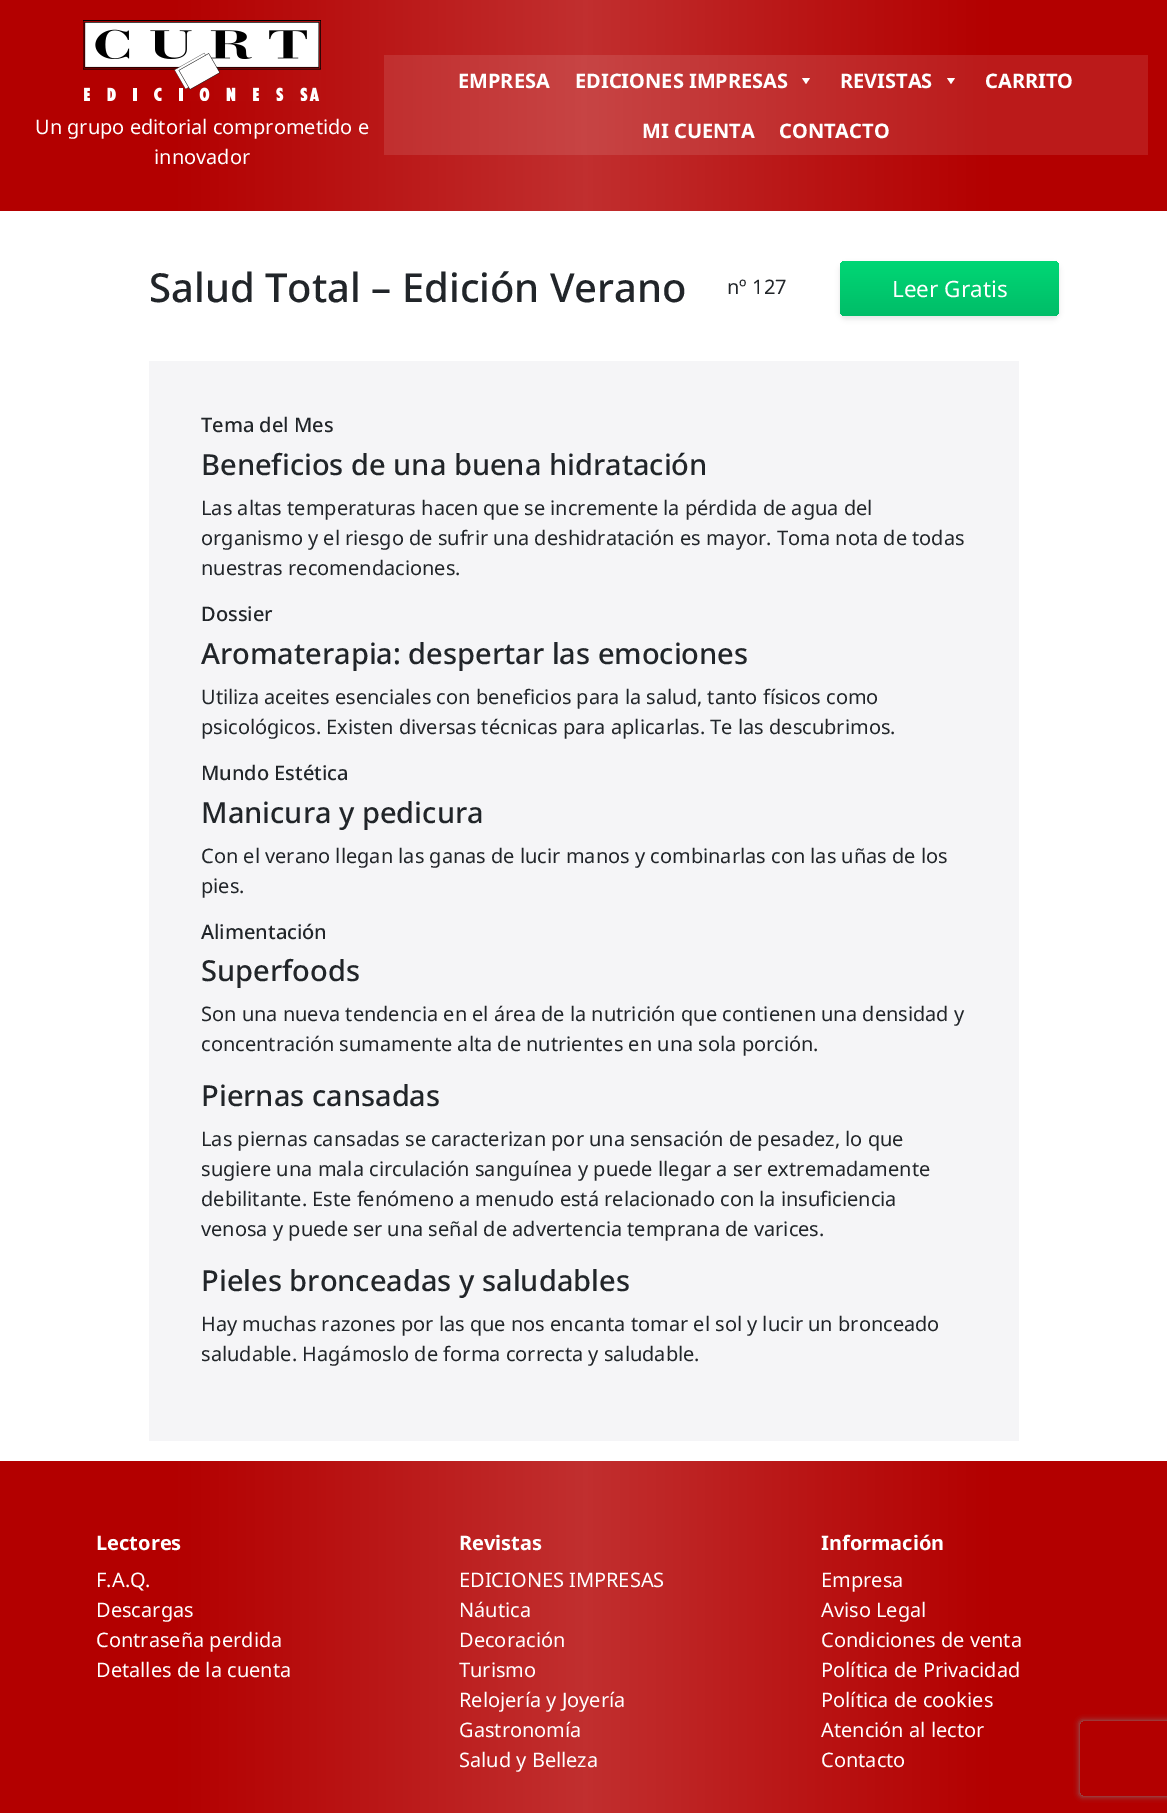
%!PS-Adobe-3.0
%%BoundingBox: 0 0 1167 1813
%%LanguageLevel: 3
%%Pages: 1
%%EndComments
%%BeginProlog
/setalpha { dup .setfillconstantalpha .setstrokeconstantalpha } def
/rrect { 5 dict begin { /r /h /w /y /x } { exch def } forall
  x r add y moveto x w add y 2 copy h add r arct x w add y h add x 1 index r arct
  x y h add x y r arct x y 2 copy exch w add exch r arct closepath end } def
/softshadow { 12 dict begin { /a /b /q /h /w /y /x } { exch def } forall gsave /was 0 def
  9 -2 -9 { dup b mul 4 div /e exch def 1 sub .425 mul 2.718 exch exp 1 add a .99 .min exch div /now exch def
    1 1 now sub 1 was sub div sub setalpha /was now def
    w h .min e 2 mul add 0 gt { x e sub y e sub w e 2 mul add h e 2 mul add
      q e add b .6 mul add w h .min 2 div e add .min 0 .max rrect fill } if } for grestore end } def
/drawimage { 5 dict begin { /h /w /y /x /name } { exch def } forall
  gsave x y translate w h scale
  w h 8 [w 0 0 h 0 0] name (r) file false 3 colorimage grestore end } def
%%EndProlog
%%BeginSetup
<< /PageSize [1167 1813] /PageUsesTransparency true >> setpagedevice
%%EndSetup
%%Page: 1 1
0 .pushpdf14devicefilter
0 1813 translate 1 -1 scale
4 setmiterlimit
1 setgray
0 0 1167 1813 rectfill
gsave newpath 0 0 moveto 1167 0 lineto 1167 211 lineto 0 211 lineto closepath clip newpath
<< /ShadingType 2 /ColorSpace /DeviceRGB /Coords [0 106 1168 106] /Extend [true true] /Function << /FunctionType 3 /Domain [0 1] /Functions [<< /FunctionType 2 /Domain [0 1] /C0 [0.702 0 0] /C1 [0.702 0 0] /N 1 >> << /FunctionType 2 /Domain [0 1] /C0 [0.702 0 0] /C1 [0.757 0.184 0.184] /N 1 >> << /FunctionType 2 /Domain [0 1] /C0 [0.757 0.184 0.184] /C1 [0.702 0 0] /N 1 >> << /FunctionType 2 /Domain [0 1] /C0 [0.702 0 0] /C1 [0.702 0 0] /N 1 >>] /Bounds [0.15 0.5 0.85] /Encode [0 1 0 1 0 1 0 1] >> >> shfill grestore
gsave newpath 384 55 moveto 1148 55 lineto 1148 155 lineto 384 155 lineto closepath clip newpath
<< /ShadingType 2 /ColorSpace /DeviceRGB /Coords [0 106 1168 106] /Extend [true true] /Function << /FunctionType 3 /Domain [0 1] /Functions [<< /FunctionType 2 /Domain [0 1] /C0 [0.733 0.102 0.102] /C1 [0.733 0.102 0.102] /N 1 >> << /FunctionType 2 /Domain [0 1] /C0 [0.733 0.102 0.102] /C1 [0.78 0.267 0.267] /N 1 >> << /FunctionType 2 /Domain [0 1] /C0 [0.78 0.267 0.267] /C1 [0.733 0.102 0.102] /N 1 >> << /FunctionType 2 /Domain [0 1] /C0 [0.733 0.102 0.102] /C1 [0.733 0.102 0.102] /N 1 >>] /Bounds [0.15 0.5 0.85] /Encode [0 1 0 1 0 1 0 1] >> >> shfill grestore
(images/1.raw) 83 20 238 81 drawimage
newpath 810 78 moveto 806 84 lineto 802 78 lineto closepath fill
newpath 955 78 moveto 951 84 lineto 947 78 lineto closepath fill
0 setgray
840 264 219 55 6 2.5 0.1 softshadow
gsave 840 261 219 55 6 rrect clip newpath
<< /ShadingType 2 /ColorSpace /DeviceRGB /Coords [949 261 949 316] /Extend [true true] /Function << /FunctionType 2 /Domain [0 1] /C0 [0 0.843 0.459] /C1 [0 0.741 0.408] /N 1 >> >> shfill grestore
0.961 0.961 0.969 setrgbcolor
149 361 870 1080 rectfill
gsave newpath 0 1461 moveto 1167 1461 lineto 1167 1813 lineto 0 1813 lineto closepath clip newpath
<< /ShadingType 2 /ColorSpace /DeviceRGB /Coords [0 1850 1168 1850] /Extend [true true] /Function << /FunctionType 3 /Domain [0 1] /Functions [<< /FunctionType 2 /Domain [0 1] /C0 [0.702 0 0] /C1 [0.702 0 0] /N 1 >> << /FunctionType 2 /Domain [0 1] /C0 [0.702 0 0] /C1 [0.757 0.184 0.184] /N 1 >> << /FunctionType 2 /Domain [0 1] /C0 [0.757 0.184 0.184] /C1 [0.702 0 0] /N 1 >> << /FunctionType 2 /Domain [0 1] /C0 [0.702 0 0] /C1 [0.702 0 0] /N 1 >>] /Bounds [0.15 0.5 0.85] /Encode [0 1 0 1 0 1 0 1] >> >> shfill grestore
gsave
newpath 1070 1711 moveto 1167 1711 lineto 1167 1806 lineto 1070 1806 lineto closepath 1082.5 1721 moveto 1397.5 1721 lineto 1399 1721 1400 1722 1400 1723.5 curveto 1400 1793.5 lineto 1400 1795 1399 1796 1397.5 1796 curveto 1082.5 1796 lineto 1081 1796 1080 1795 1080 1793.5 curveto 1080 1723.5 lineto 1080 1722 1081 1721 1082.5 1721 curveto closepath eoclip newpath
0.502 setgray
1080 1721 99 75 2.5 3 1 softshadow
grestore
/NotoSans-Regular [20 0 0 -20 0 0] selectfont
1 setgray
35 134 moveto (Un grupo editorial comprometido e) show
154 164 moveto (innovador) show
/NotoSans-Bold [20 0 0 -20 0 0] selectfont
458 88 moveto (EMPRESA) show
575 88 moveto (EDICIONES IMPRESAS) show
840 88 moveto (REVISTAS) show
985 88 moveto (CARRITO) show
642 138 moveto (MI CUENTA) show
779 138 moveto (CONTACTO) show
/NotoSans-Medium [40 0 0 -40 0 0] selectfont
0.129 0.145 0.161 setrgbcolor
149 302 moveto (Salud Total – Edición Verano) show
/NotoSans-Regular [20 0 0 -20 0 0] selectfont
727 294 moveto (nº 127) show
/NotoSans-Regular [22.5 0 0 -22.5 0 0] selectfont
1 setgray
892 297 moveto (Leer Gratis) show
/NotoSans-Medium [20 0 0 -20 0 0] selectfont
0.129 0.145 0.161 setrgbcolor
201 432 moveto (Tema del Mes) show
/NotoSans-Medium [29 0 0 -29 0 0] selectfont
201 475 moveto (Beneficios de una buena hidratación) show
/NotoSans-Regular [20 0 0 -20 0 0] selectfont
201 515 moveto (Las altas temperaturas hacen que se incremente la pérdida de agua del) show
201 545 moveto (organismo y el riesgo de sufrir una deshidratación es mayor. Toma nota de todas) show
201 575 moveto (nuestras recomendaciones.) show
/NotoSans-Medium [20 0 0 -20 0 0] selectfont
201 621 moveto (Dossier) show
/NotoSans-Medium [29 0 0 -29 0 0] selectfont
201 664 moveto (Aromaterapia: despertar las emociones) show
/NotoSans-Regular [20 0 0 -20 0 0] selectfont
201 704 moveto (Utiliza aceites esenciales con beneficios para la salud, tanto físicos como) show
201 734 moveto (psicológicos. Existen diversas técnicas para aplicarlas. Te las descubrimos.) show
/NotoSans-Medium [20 0 0 -20 0 0] selectfont
201 780 moveto (Mundo Estética) show
/NotoSans-Medium [29 0 0 -29 0 0] selectfont
201 823 moveto (Manicura y pedicura) show
/NotoSans-Regular [20 0 0 -20 0 0] selectfont
201 863 moveto (Con el verano llegan las ganas de lucir manos y combinarlas con las uñas de los) show
201 893 moveto (pies.) show
/NotoSans-Medium [20 0 0 -20 0 0] selectfont
201 939 moveto (Alimentación) show
/NotoSans-Medium [29 0 0 -29 0 0] selectfont
201 981 moveto (Superfoods) show
/NotoSans-Regular [20 0 0 -20 0 0] selectfont
201 1021 moveto (Son una nueva tendencia en el área de la nutrición que contienen una densidad y) show
201 1051 moveto (concentración sumamente alta de nutrientes en una sola porción.) show
/NotoSans-Medium [29 0 0 -29 0 0] selectfont
201 1106 moveto (Piernas cansadas) show
/NotoSans-Regular [20 0 0 -20 0 0] selectfont
201 1146 moveto (Las piernas cansadas se caracterizan por una sensación de pesadez, lo que) show
201 1176 moveto (sugiere una mala circulación sanguínea y puede llegar a ser extremadamente) show
201 1206 moveto (debilitante. Este fenómeno a menudo está relacionado con la insuficiencia) show
201 1236 moveto (venosa y puede ser una señal de advertencia temprana de varices.) show
/NotoSans-Medium [29 0 0 -29 0 0] selectfont
201 1291 moveto (Pieles bronceadas y saludables) show
/NotoSans-Regular [20 0 0 -20 0 0] selectfont
201 1331 moveto (Hay muchas razones por las que nos encanta tomar el sol y lucir un bronceado) show
201 1361 moveto (saludable. Hagámoslo de forma correcta y saludable.) show
/NotoSans-Bold [20 0 0 -20 0 0] selectfont
1 setgray
96 1550 moveto (Lectores) show
/NotoSans-Regular [20 0 0 -20 0 0] selectfont
96 1587 moveto (F.A.Q.) show
96 1617 moveto (Descargas) show
96 1647 moveto (Contraseña perdida) show
96 1677 moveto (Detalles de la cuenta) show
/NotoSans-Bold [20 0 0 -20 0 0] selectfont
459 1550 moveto (Revistas) show
/NotoSans-Regular [20 0 0 -20 0 0] selectfont
459 1587 moveto (EDICIONES IMPRESAS) show
459 1617 moveto (Náutica) show
459 1647 moveto (Decoración) show
459 1677 moveto (Turismo) show
459 1707 moveto (Relojería y Joyería) show
459 1737 moveto (Gastronomía) show
459 1767 moveto (Salud y Belleza) show
/NotoSans-Bold [20 0 0 -20 0 0] selectfont
821 1550 moveto (Información) show
/NotoSans-Regular [20 0 0 -20 0 0] selectfont
821 1587 moveto (Empresa) show
821 1617 moveto (Aviso Legal) show
821 1647 moveto (Condiciones de venta) show
821 1677 moveto (Política de Privacidad) show
821 1707 moveto (Política de cookies) show
821 1737 moveto (Atención al lector) show
821 1767 moveto (Contacto) show
.poppdf14devicefilter showpage
%%EOF
